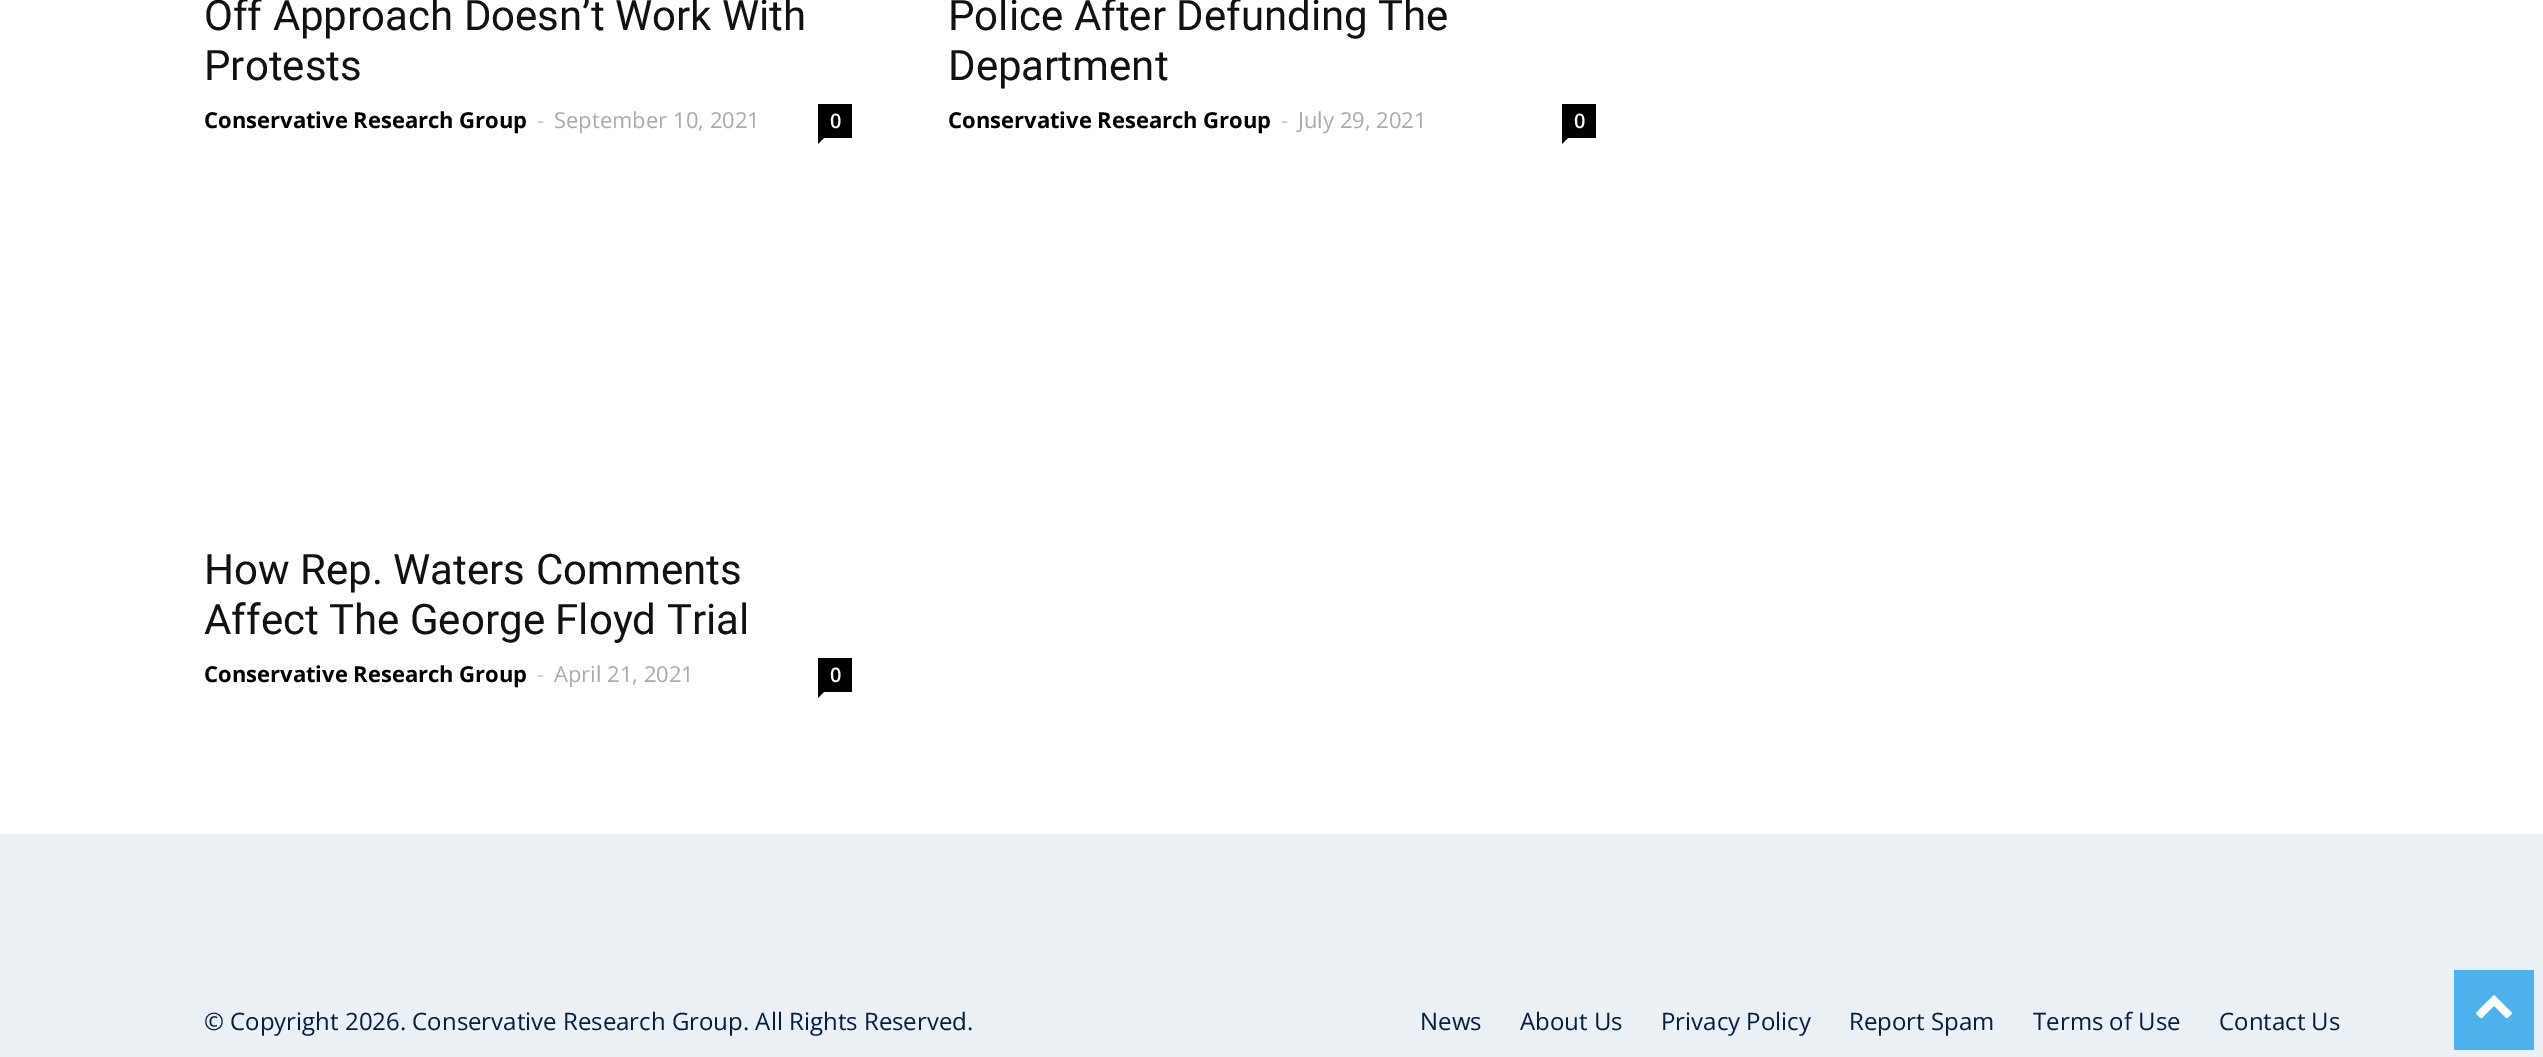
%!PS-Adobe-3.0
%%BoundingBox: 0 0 2543 1057
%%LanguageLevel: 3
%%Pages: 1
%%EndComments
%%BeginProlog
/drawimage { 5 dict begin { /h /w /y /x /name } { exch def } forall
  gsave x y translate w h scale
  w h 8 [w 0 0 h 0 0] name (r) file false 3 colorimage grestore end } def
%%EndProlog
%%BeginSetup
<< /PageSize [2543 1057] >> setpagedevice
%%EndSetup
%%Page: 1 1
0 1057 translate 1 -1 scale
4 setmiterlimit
1 setgray
0 0 2543 1057 rectfill
0 setgray
818 104 34 34 rectfill
newpath 818 138 moveto 824 138 lineto 818 144 lineto closepath fill
1562 104 34 34 rectfill
newpath 1562 138 moveto 1568 138 lineto 1562 144 lineto closepath fill
818 658 34 34 rectfill
newpath 818 692 moveto 824 692 lineto 818 698 lineto closepath fill
0.918 0.941 0.953 setrgbcolor
0 834 2543 223 rectfill
0.302 0.698 0.925 setrgbcolor
2454 970 80 80 rectfill
(images/1.raw) 2476 995 36 24 drawimage
/Roboto-Regular [42 0 0 -42 0 0] selectfont
0.067 setgray
204 30 moveto (Off Approach Doesn’t Work With) show
204 80 moveto (Protests) show
/OpenSans-Bold [22 0 0 -22 0 0] selectfont
0 setgray
204 128 moveto (Conservative Research Group) show
/OpenSans-Regular [22 0 0 -22 0 0] selectfont
0.8 setgray
537 128 moveto (-) show
0.667 setgray
554 128 moveto (September 10, 2021) show
/OpenSans-SemiBold [20 0 0 -20 0 0] selectfont
1 setgray
830 128 moveto (0) show
/Roboto-Regular [42 0 0 -42 0 0] selectfont
0.067 setgray
948 30 moveto (Police After Defunding The) show
948 80 moveto (Department) show
/OpenSans-Bold [22 0 0 -22 0 0] selectfont
0 setgray
948 128 moveto (Conservative Research Group) show
/OpenSans-Regular [22 0 0 -22 0 0] selectfont
0.8 setgray
1281 128 moveto (-) show
0.667 setgray
1298 128 moveto (July 29, 2021) show
/OpenSans-SemiBold [20 0 0 -20 0 0] selectfont
1 setgray
1574 128 moveto (0) show
/Roboto-Regular [42 0 0 -42 0 0] selectfont
0.067 setgray
204 584 moveto (How Rep. Waters Comments) show
204 634 moveto (Affect The George Floyd Trial) show
/OpenSans-Bold [22 0 0 -22 0 0] selectfont
0 setgray
204 682 moveto (Conservative Research Group) show
/OpenSans-Regular [22 0 0 -22 0 0] selectfont
0.8 setgray
537 682 moveto (-) show
0.667 setgray
554 682 moveto (April 21, 2021) show
/OpenSans-SemiBold [20 0 0 -20 0 0] selectfont
1 setgray
830 682 moveto (0) show
/OpenSans-Regular [24 0 0 -24 0 0] selectfont
0.016 0.122 0.239 setrgbcolor
204 1030 moveto (© Copyright 2026. Conservative Research Group. All Rights Reserved.) show
1420 1030 moveto (News) show
1520 1030 moveto (About Us) show
1661 1030 moveto (Privacy Policy) show
1849 1030 moveto (Report Spam) show
2033 1030 moveto (Terms of Use) show
2219 1030 moveto (Contact Us) show
showpage
%%EOF
